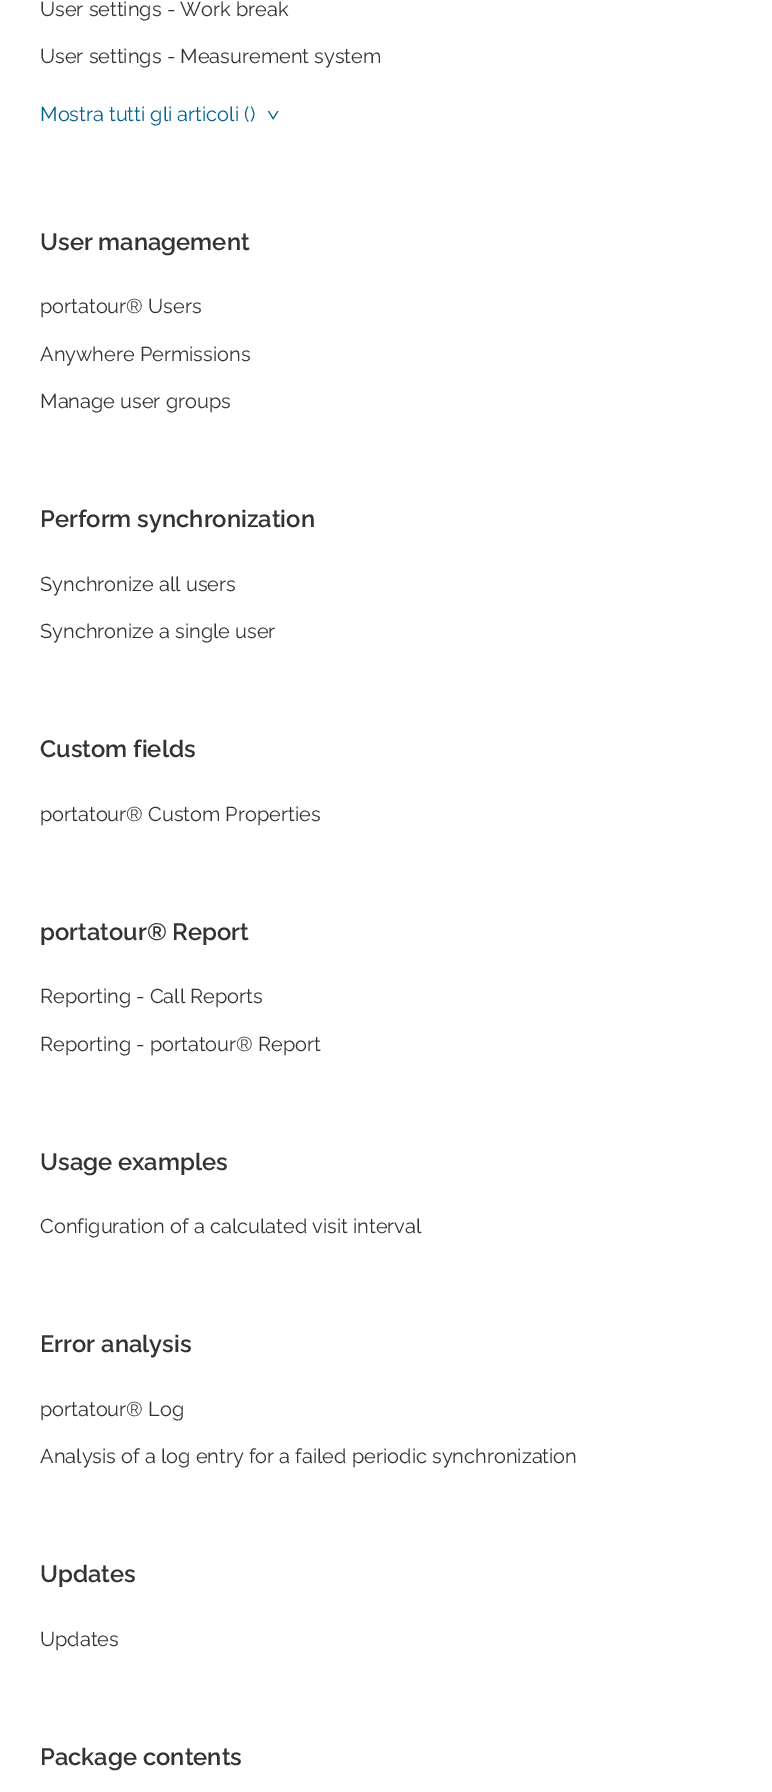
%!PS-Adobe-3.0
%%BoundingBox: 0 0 772 1792
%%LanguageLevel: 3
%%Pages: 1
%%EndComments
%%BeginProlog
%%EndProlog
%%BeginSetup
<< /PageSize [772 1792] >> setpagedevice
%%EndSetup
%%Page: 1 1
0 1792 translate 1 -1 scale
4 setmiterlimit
1 setgray
0 0 772 1792 rectfill
/Raleway-Regular [20 0 0 -20 0 0] selectfont
0.2 setgray
40 16 moveto (User settings - Work break) show
40 63 moveto (User settings - Measurement system) show
0 0.384 0.561 setrgbcolor
40 121 moveto (Mostra tutti gli articoli \(\)) show
gsave 268 110 translate 90 rotate 0 0 moveto (>) show grestore
/Raleway-SemiBold [23.75 0 0 -23.75 0 0] selectfont
0.2 setgray
40 250 moveto (User management) show
/Raleway-Regular [20 0 0 -20 0 0] selectfont
40 313 moveto (portatour® Users) show
40 361 moveto (Anywhere Permissions) show
40 408 moveto (Manage user groups) show
/Raleway-SemiBold [23.75 0 0 -23.75 0 0] selectfont
40 527 moveto (Perform synchronization) show
/Raleway-Regular [20 0 0 -20 0 0] selectfont
40 591 moveto (Synchronize all users) show
40 638 moveto (Synchronize a single user) show
/Raleway-SemiBold [23.75 0 0 -23.75 0 0] selectfont
40 757 moveto (Custom fields) show
/Raleway-Regular [20 0 0 -20 0 0] selectfont
40 821 moveto (portatour® Custom Properties) show
/Raleway-SemiBold [23.75 0 0 -23.75 0 0] selectfont
40 940 moveto (portatour® Report) show
/Raleway-Regular [20 0 0 -20 0 0] selectfont
40 1003 moveto (Reporting - Call Reports) show
40 1051 moveto (Reporting - portatour® Report) show
/Raleway-SemiBold [23.75 0 0 -23.75 0 0] selectfont
40 1170 moveto (Usage examples) show
/Raleway-Regular [20 0 0 -20 0 0] selectfont
40 1233 moveto (Configuration of a calculated visit interval) show
/Raleway-SemiBold [23.75 0 0 -23.75 0 0] selectfont
40 1352 moveto (Error analysis) show
/Raleway-Regular [20 0 0 -20 0 0] selectfont
40 1416 moveto (portatour® Log) show
40 1463 moveto (Analysis of a log entry for a failed periodic synchronization) show
/Raleway-SemiBold [23.75 0 0 -23.75 0 0] selectfont
40 1582 moveto (Updates) show
/Raleway-Regular [20 0 0 -20 0 0] selectfont
40 1646 moveto (Updates) show
/Raleway-SemiBold [23.75 0 0 -23.75 0 0] selectfont
40 1765 moveto (Package contents) show
showpage
%%EOF
